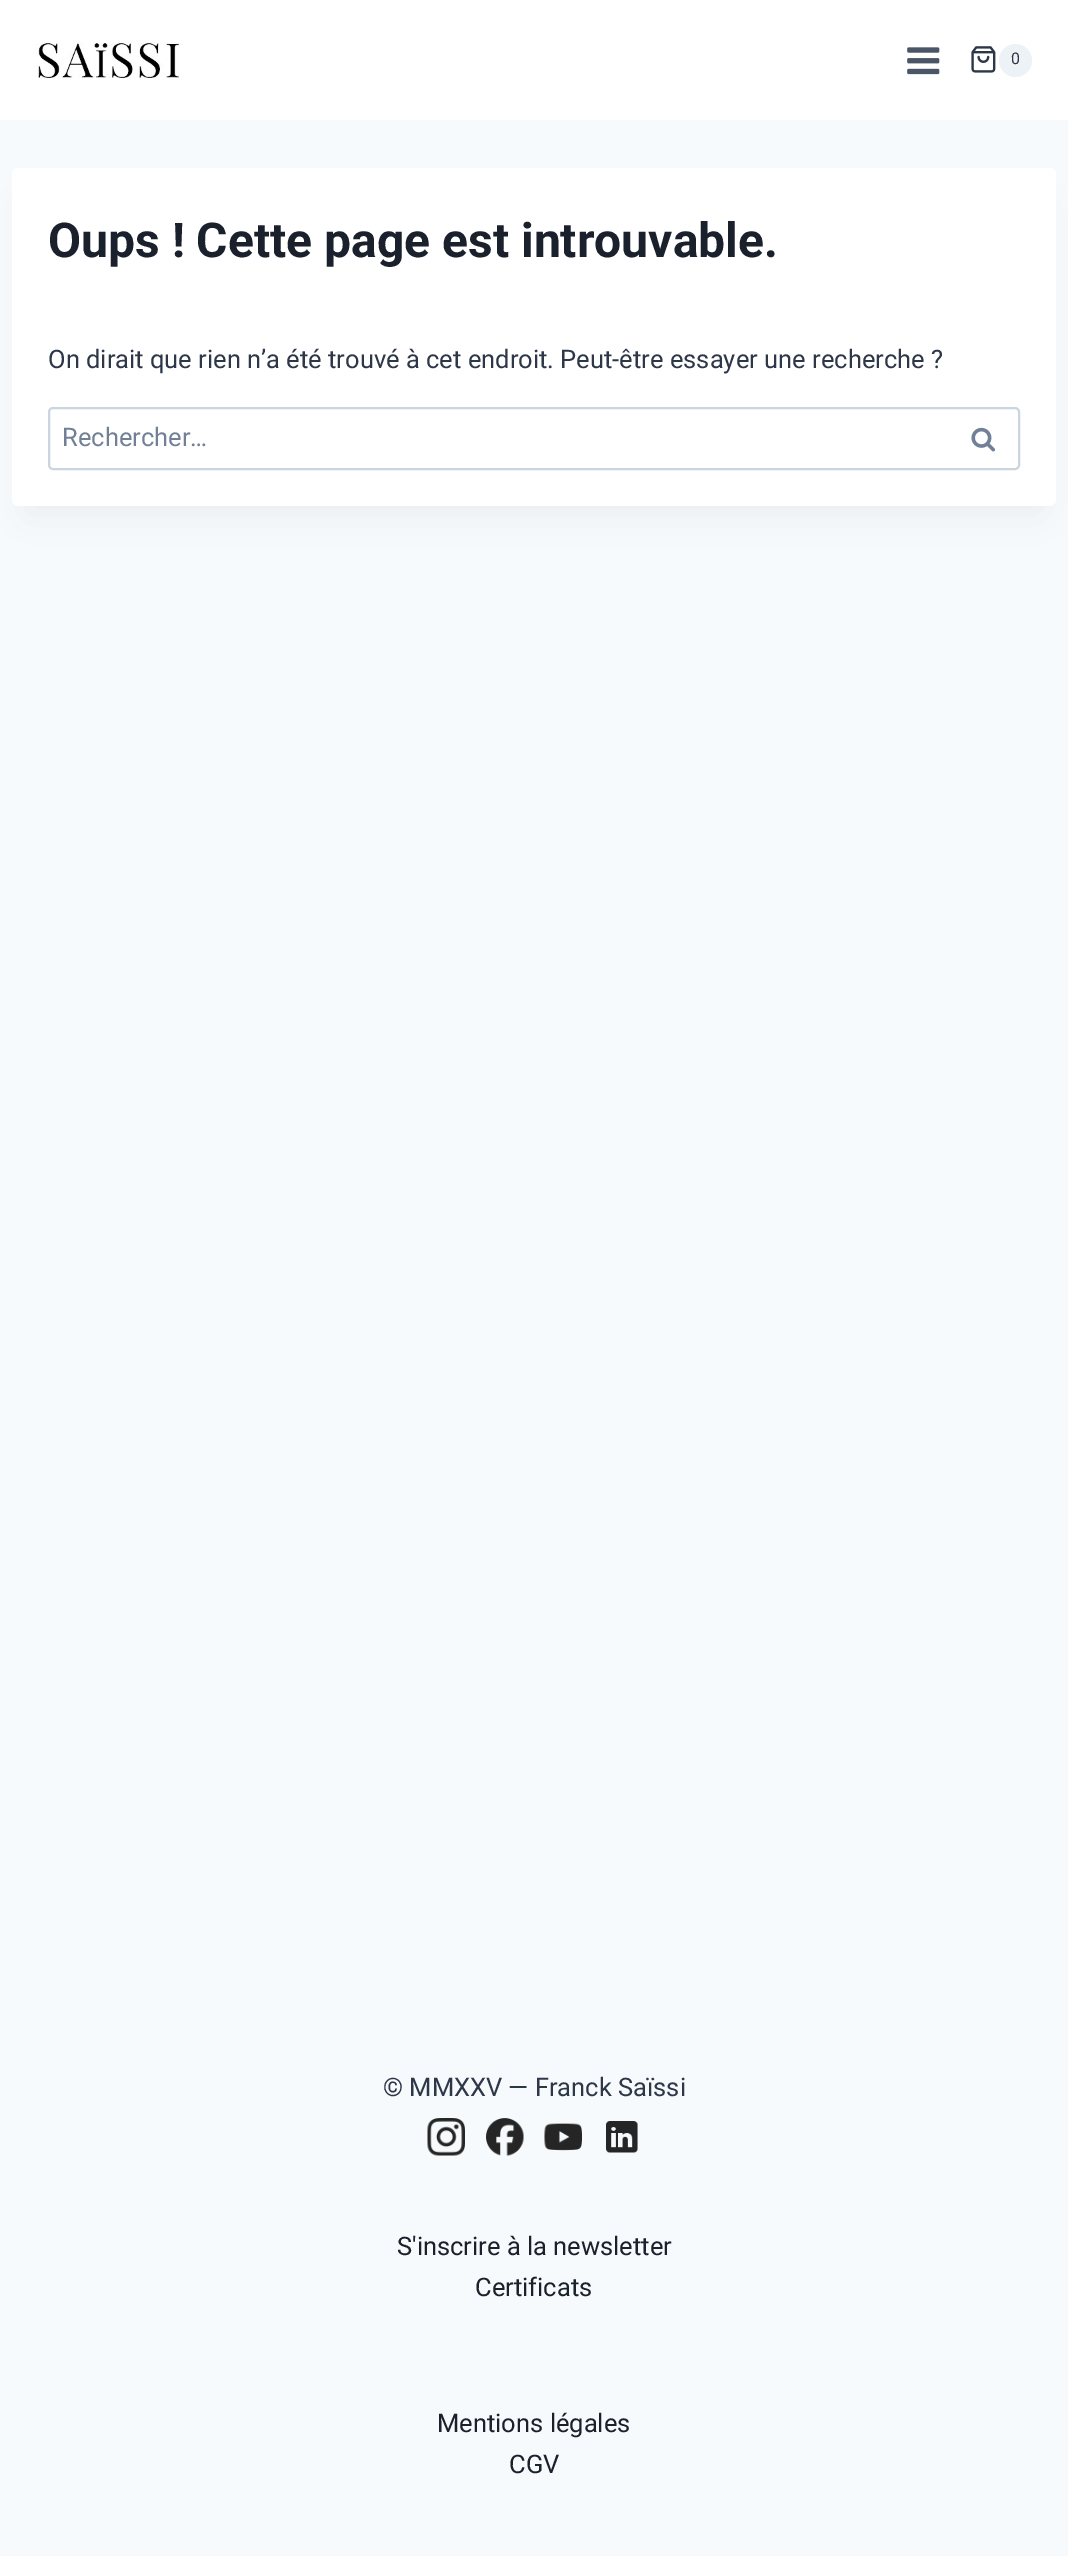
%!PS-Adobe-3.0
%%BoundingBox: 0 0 1068 2556
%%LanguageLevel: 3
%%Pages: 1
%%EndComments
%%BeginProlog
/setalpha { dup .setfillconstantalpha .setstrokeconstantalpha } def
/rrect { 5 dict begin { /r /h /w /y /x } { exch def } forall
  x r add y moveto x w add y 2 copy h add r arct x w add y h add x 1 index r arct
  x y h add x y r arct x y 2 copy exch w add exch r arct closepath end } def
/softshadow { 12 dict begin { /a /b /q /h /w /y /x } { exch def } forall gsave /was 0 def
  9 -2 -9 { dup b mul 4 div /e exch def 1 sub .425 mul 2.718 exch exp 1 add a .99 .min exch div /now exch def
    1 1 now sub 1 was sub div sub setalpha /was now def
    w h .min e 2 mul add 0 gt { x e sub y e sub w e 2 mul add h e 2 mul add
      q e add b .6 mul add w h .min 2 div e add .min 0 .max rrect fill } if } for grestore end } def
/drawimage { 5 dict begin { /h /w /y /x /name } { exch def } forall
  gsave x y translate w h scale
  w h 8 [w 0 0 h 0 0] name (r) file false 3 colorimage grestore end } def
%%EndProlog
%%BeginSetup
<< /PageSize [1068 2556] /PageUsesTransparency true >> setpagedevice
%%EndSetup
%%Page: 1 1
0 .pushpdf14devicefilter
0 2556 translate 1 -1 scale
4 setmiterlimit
0.969 0.98 0.988 setrgbcolor
0 0 1068 2556 rectfill
1 setgray
0 0 1068 120 rectfill
(images/1.raw) 36 42 144 36 drawimage
(images/2.raw) 907 47 33 28 drawimage
(images/3.raw) 971 46 25 27 drawimage
0.929 0.949 0.969 setrgbcolor
newpath 1015.5 60.5 16.5 0 360 arc closepath fill
0 setgray
27 206 1014 307 0 19 0.05 softshadow
1 setgray
12 168 1044 338 6 rrect fill
0.796 0.835 0.878 setrgbcolor
2 setlinewidth
49 408 970 61 4 rrect stroke
(images/4.raw) 971 427 25 25 drawimage
(images/5.raw) 427 2118 38 38 drawimage
(images/6.raw) 486 2118 38 38 drawimage
(images/7.raw) 544 2123 38 28 drawimage
(images/8.raw) 606 2121 32 32 drawimage
/Roboto-Regular [16 0 0 -16 0 0] selectfont
0.176 0.216 0.282 setrgbcolor
1011 64 moveto (0) show
/Roboto-Bold [48 0 0 -48 0 0] selectfont
0.102 0.125 0.173 setrgbcolor
48 257 moveto (Oups ! Cette page est introuvable.) show
/Roboto-Regular [25.5 0 0 -25.5 0 0] selectfont
0.176 0.216 0.282 setrgbcolor
48 368 moveto (On dirait que rien n’a été trouvé à cet endroit. Peut-être essayer une recherche ?) show
0.443 0.502 0.588 setrgbcolor
62 446 moveto (Rechercher…) show
0.176 0.216 0.282 setrgbcolor
383 2096 moveto (© MMXXV — Franck Saïssi) show
0.102 0.125 0.173 setrgbcolor
397 2255 moveto (S'inscrire à la newsletter) show
475 2296 moveto (Certificats) show
437 2432 moveto (Mentions légales) show
509 2473 moveto (CGV) show
.poppdf14devicefilter showpage
%%EOF
